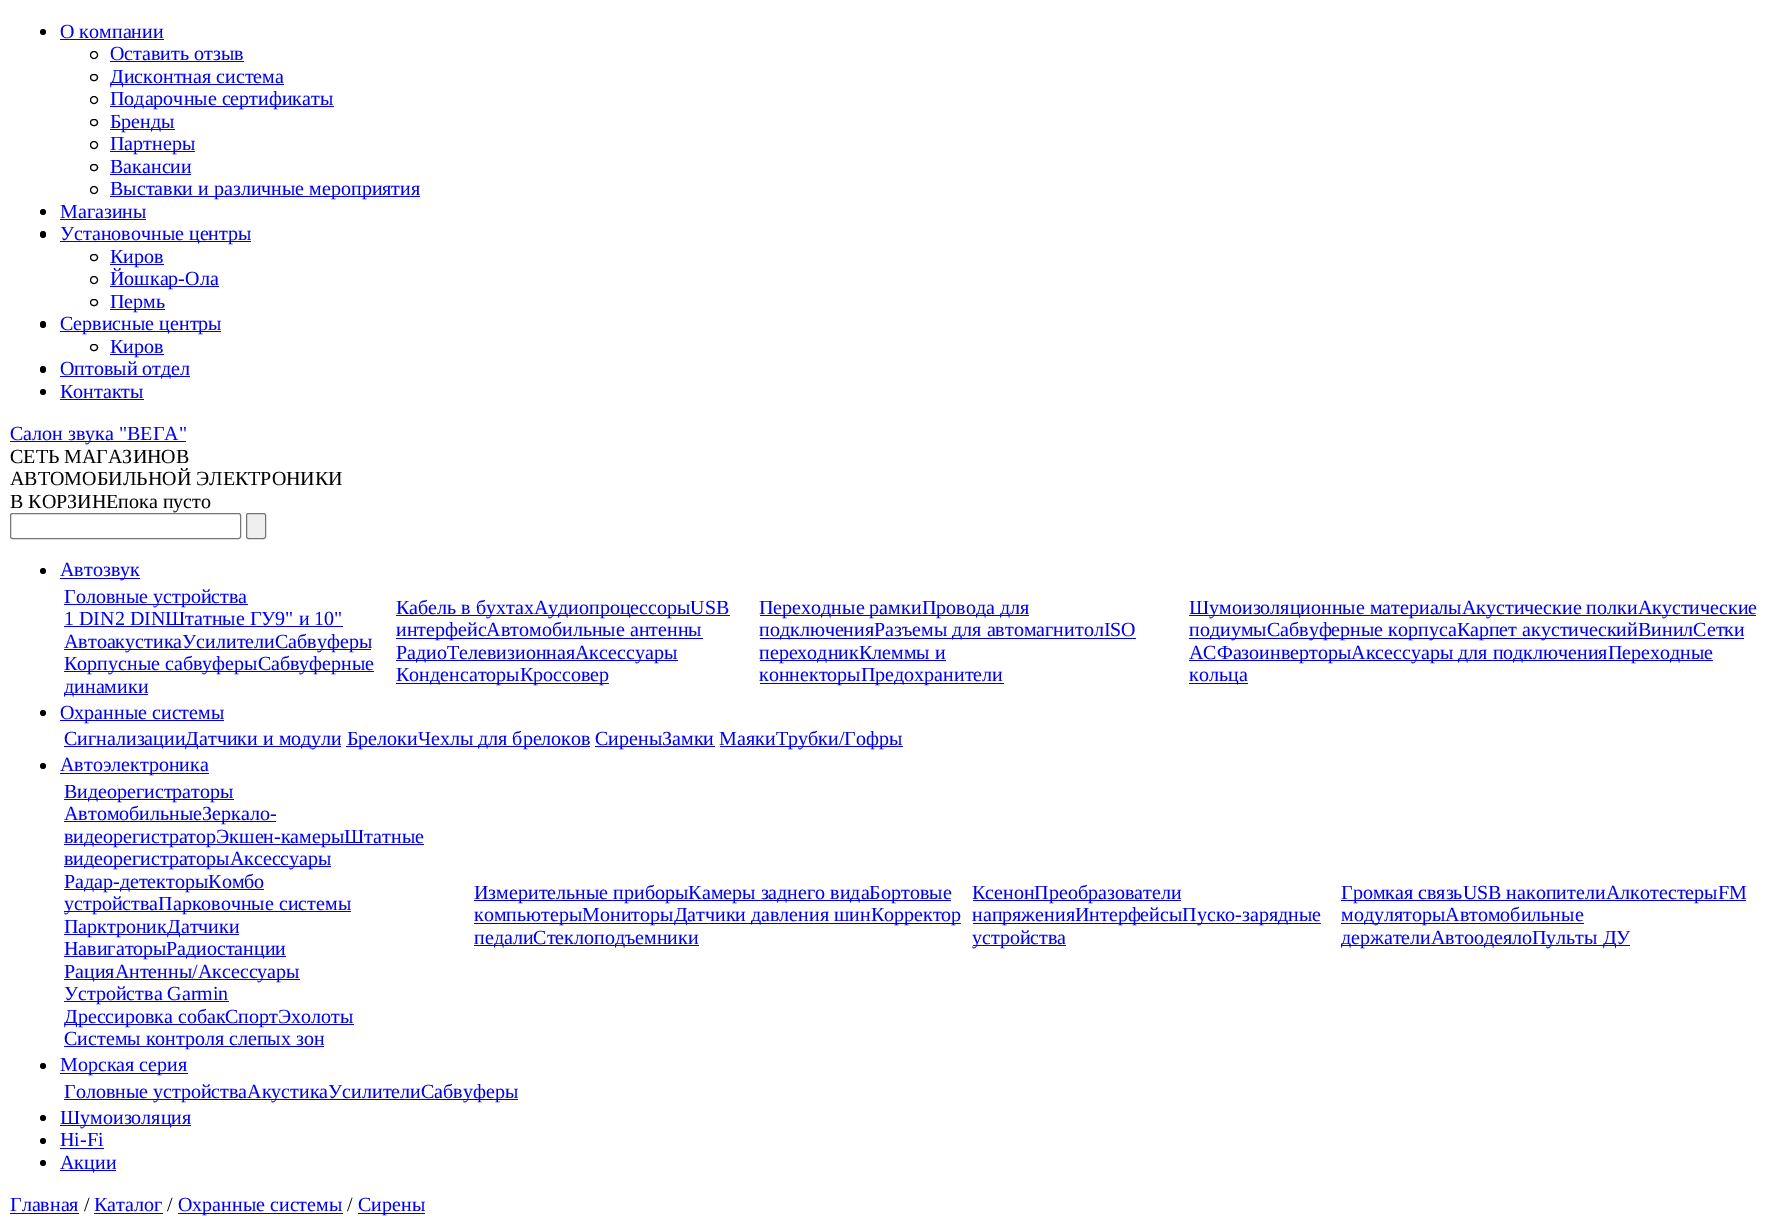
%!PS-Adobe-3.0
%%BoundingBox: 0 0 1776 1228
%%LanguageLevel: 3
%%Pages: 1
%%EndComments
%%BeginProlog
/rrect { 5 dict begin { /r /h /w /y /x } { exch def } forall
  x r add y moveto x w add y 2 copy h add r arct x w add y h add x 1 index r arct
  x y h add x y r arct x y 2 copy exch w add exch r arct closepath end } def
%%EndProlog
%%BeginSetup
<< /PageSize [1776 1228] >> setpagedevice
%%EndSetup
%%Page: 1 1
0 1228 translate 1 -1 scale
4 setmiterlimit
1 setgray
0 0 1776 1228 rectfill
0 setgray
newpath 43 32 3 0 360 arc closepath fill
0 0 0.933 setrgbcolor
60 39 104 1 rectfill
0 setgray
newpath 94 55 3.5 0 360 arc closepath stroke
0 0 0.933 setrgbcolor
110 61 134 1 rectfill
0 setgray
90.5 74.5 7 6 3 rrect stroke
0 0 0.933 setrgbcolor
110 84 174 1 rectfill
0 setgray
newpath 94 100 3.5 0 360 arc closepath stroke
0 0 0.933 setrgbcolor
110 106 224 1 rectfill
0 setgray
90.5 119.5 7 6 3 rrect stroke
0 0 0.933 setrgbcolor
110 129 65 1 rectfill
0 setgray
newpath 94 145 3.5 0 360 arc closepath stroke
0 0 0.933 setrgbcolor
110 151 85 1 rectfill
0 setgray
90.5 164.5 7 6 3 rrect stroke
0 0 0.933 setrgbcolor
110 174 81 1 rectfill
0 setgray
newpath 94 190 3.5 0 360 arc closepath stroke
0 0 0.933 setrgbcolor
110 196 310 1 rectfill
0 setgray
newpath 43 212 3 0 360 arc closepath fill
0 0 0.933 setrgbcolor
60 219 86 1 rectfill
0 setgray
40 231 6 7 3 rrect fill
0 0 0.933 setrgbcolor
60 241 191 1 rectfill
0 setgray
90.5 254.5 7 6 3 rrect stroke
0 0 0.933 setrgbcolor
110 264 54 1 rectfill
0 setgray
newpath 94 280 3.5 0 360 arc closepath stroke
0 0 0.933 setrgbcolor
110 286 109 1 rectfill
0 setgray
90.5 299.5 7 6 3 rrect stroke
0 0 0.933 setrgbcolor
110 309 55 1 rectfill
0 setgray
40 321 6 7 3 rrect fill
0 0 0.933 setrgbcolor
60 331 161 1 rectfill
0 setgray
90.5 344.5 7 6 3 rrect stroke
0 0 0.933 setrgbcolor
110 354 54 1 rectfill
0 setgray
40 366 6 7 3 rrect fill
0 0 0.933 setrgbcolor
60 376 130 1 rectfill
0 setgray
newpath 43 392 3 0 360 arc closepath fill
0 0 0.933 setrgbcolor
60 399 84 1 rectfill
10 441 176 1 rectfill
0.463 setgray
10.5 513.5 230 25 2 rrect stroke
0.937 setgray
246.5 513.5 19 25 2 rrect gsave fill grestore
0.463 setgray
stroke
0 setgray
newpath 43 571 3 0 360 arc closepath fill
0 0 0.933 setrgbcolor
60 578 80 1 rectfill
64 604 184 1 rectfill
64 626 279 1 rectfill
64 649 307 1 rectfill
64 671 310 1 rectfill
64 694 84 1 rectfill
396 615 294 1 rectfill
690 615 40 1 rectfill
396 638 90 1 rectfill
486 638 217 1 rectfill
396 660 282 1 rectfill
396 683 213 1 rectfill
760 615 161 1 rectfill
921 615 108 1 rectfill
760 638 376 1 rectfill
760 660 99 1 rectfill
859 660 87 1 rectfill
760 683 244 1 rectfill
1189 615 567 1 rectfill
1189 638 555 1 rectfill
1189 660 524 1 rectfill
1189 683 59 1 rectfill
0 setgray
newpath 43 713 3 0 360 arc closepath fill
0 0 0.933 setrgbcolor
60 720 164 1 rectfill
64 746 277 1 rectfill
346 746 244 1 rectfill
595 746 120 1 rectfill
720 746 183 1 rectfill
0 setgray
newpath 43 766 3 0 360 arc closepath fill
0 0 0.933 setrgbcolor
60 773 149 1 rectfill
64 799 170 1 rectfill
64 821 212 1 rectfill
64 844 360 1 rectfill
64 866 267 1 rectfill
64 889 200 1 rectfill
64 911 287 1 rectfill
64 934 102 1 rectfill
166 934 73 1 rectfill
64 956 102 1 rectfill
166 956 120 1 rectfill
64 979 236 1 rectfill
64 1001 165 1 rectfill
64 1024 161 1 rectfill
225 1024 129 1 rectfill
64 1046 260 1 rectfill
474 900 477 1 rectfill
474 923 487 1 rectfill
474 945 225 1 rectfill
973 900 208 1 rectfill
973 923 348 1 rectfill
973 945 93 1 rectfill
1341 900 264 1 rectfill
1605 900 141 1 rectfill
1341 923 243 1 rectfill
1341 945 289 1 rectfill
0 setgray
newpath 43 1066 3 0 360 arc closepath fill
0 0 0.933 setrgbcolor
60 1073 128 1 rectfill
64 1099 454 1 rectfill
0 setgray
newpath 43 1118 3 0 360 arc closepath fill
0 0 0.933 setrgbcolor
60 1125 131 1 rectfill
0 setgray
newpath 43 1141 3 0 360 arc closepath fill
0 0 0.933 setrgbcolor
60 1148 44 1 rectfill
0 setgray
newpath 43 1163 3 0 360 arc closepath fill
0 0 0.933 setrgbcolor
60 1170 56 1 rectfill
10 1213 69 1 rectfill
94 1213 69 1 rectfill
178 1213 165 1 rectfill
358 1213 67 1 rectfill
/LiberationSerif-Regular [20 0 0 -20 0 0] selectfont
60 38 moveto (О компании) show
110 60 moveto (Оставить отзыв) show
110 83 moveto (Дисконтная система) show
110 105 moveto (Подарочные сертификаты) show
110 128 moveto (Бренды) show
110 150 moveto (Партнеры) show
110 173 moveto (Вакансии) show
110 195 moveto (Выставки и различные мероприятия) show
60 218 moveto (Магазины) show
60 240 moveto (Установочные центры) show
110 263 moveto (Киров) show
110 285 moveto (Йошкар-Ола) show
110 308 moveto (Пермь) show
60 330 moveto (Сервисные центры) show
110 353 moveto (Киров) show
60 375 moveto (Оптовый отдел) show
60 398 moveto (Контакты) show
10 440 moveto (Салон звука "ВЕГА") show
0 setgray
10 463 moveto (СЕТЬ МАГАЗИНОВ) show
10 485 moveto (АВТОМОБИЛЬНОЙ ЭЛЕКТРОНИКИ) show
10 508 moveto (В КОРЗИНЕпока пусто) show
0 0 0.933 setrgbcolor
60 576 moveto (Автозвук) show
64 603 moveto (Головные устройства) show
64 625 moveto (1 DIN2 DINШтатные ГУ9" и 10") show
64 648 moveto (АвтоакустикаУсилителиСабвуферы) show
64 670 moveto (Корпусные сабвуферыСабвуферные) show
64 693 moveto (динамики) show
396 614 moveto (Кабель в бухтахАудиопроцессорыUSB) show
396 636 moveto (интерфейсАвтомобильные антенны) show
396 659 moveto (РадиоТелевизионнаяАксессуары) show
396 681 moveto (КонденсаторыКроссовер) show
759 614 moveto (Переходные рамки) show
922 614 moveto (Провода для) show
759 636 moveto (подключенияРазъемы для автомагнитолISO) show
759 659 moveto (переходникКлеммы и) show
759 681 moveto (коннекторыПредохранители) show
1189 614 moveto (Шумоизоляционные материалыАкустические полкиАкустические) show
1189 636 moveto (подиумыСабвуферные корпусаКарпет акустическийВинилСетки) show
1189 659 moveto (АСФазоинверторыАксессуары для подключенияПереходные) show
1189 681 moveto (кольца) show
60 719 moveto (Охранные системы) show
64 745 moveto (СигнализацииДатчики и модули) show
347 745 moveto (БрелокиЧехлы для брелоков) show
595 745 moveto (СиреныЗамки Маяки) show
776 745 moveto (Трубки/Гофры) show
60 771 moveto (Автоэлектроника) show
64 798 moveto (Видеорегистраторы) show
64 820 moveto (АвтомобильныеЗеркало-) show
64 843 moveto (видеорегистраторЭкшен-камерыШтатные) show
64 865 moveto (видеорегистраторыАксессуары) show
64 888 moveto (Радар-детекторыКомбо) show
64 910 moveto (устройстваПарковочные системы) show
64 933 moveto (Парктроник) show
167 933 moveto (Датчики) show
64 955 moveto (Навигаторы) show
166 955 moveto (Радиостанции) show
64 978 moveto (РацияАнтенны/Аксессуары) show
64 1000 moveto (Устройства Garmin) show
64 1023 moveto (Дрессировка собак) show
225 1023 moveto (СпортЭхолоты) show
64 1045 moveto (Системы контроля слепых зон) show
474 899 moveto (Измерительные приборыКамеры заднего видаБортовые) show
474 921 moveto (компьютерыМониторыДатчики давления шинКорректор) show
474 944 moveto (педалиСтеклоподъемники) show
972 899 moveto (КсенонПреобразователи) show
972 921 moveto (напряженияИнтерфейсыПуско-зарядные) show
972 944 moveto (устройства) show
1341 899 moveto (Громкая связьUSB накопители) show
1606 899 moveto (АлкотестерыFM) show
1341 921 moveto (модуляторыАвтомобильные) show
1341 944 moveto (держателиАвтоодеялоПульты ДУ) show
60 1071 moveto (Морская серия) show
64 1098 moveto (Головные устройстваАкустикаУсилителиСабвуферы) show
60 1124 moveto (Шумоизоляция) show
60 1146 moveto (Hi-Fi) show
60 1169 moveto (Акции) show
10 1211 moveto (Главная) show
0 setgray
84 1211 moveto (/) show
0 0 0.933 setrgbcolor
94 1211 moveto (Каталог) show
0 setgray
167 1211 moveto (/) show
0 0 0.933 setrgbcolor
178 1211 moveto (Охранные системы) show
0 setgray
347 1211 moveto (/) show
0 0 0.933 setrgbcolor
358 1211 moveto (Сирены) show
showpage
%%EOF
